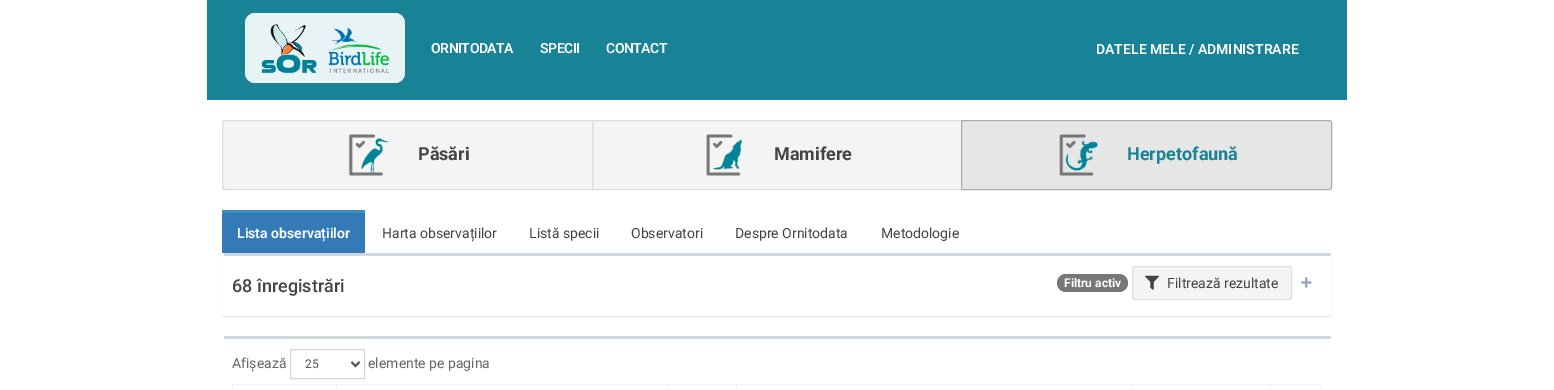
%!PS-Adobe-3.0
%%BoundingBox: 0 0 1554 390
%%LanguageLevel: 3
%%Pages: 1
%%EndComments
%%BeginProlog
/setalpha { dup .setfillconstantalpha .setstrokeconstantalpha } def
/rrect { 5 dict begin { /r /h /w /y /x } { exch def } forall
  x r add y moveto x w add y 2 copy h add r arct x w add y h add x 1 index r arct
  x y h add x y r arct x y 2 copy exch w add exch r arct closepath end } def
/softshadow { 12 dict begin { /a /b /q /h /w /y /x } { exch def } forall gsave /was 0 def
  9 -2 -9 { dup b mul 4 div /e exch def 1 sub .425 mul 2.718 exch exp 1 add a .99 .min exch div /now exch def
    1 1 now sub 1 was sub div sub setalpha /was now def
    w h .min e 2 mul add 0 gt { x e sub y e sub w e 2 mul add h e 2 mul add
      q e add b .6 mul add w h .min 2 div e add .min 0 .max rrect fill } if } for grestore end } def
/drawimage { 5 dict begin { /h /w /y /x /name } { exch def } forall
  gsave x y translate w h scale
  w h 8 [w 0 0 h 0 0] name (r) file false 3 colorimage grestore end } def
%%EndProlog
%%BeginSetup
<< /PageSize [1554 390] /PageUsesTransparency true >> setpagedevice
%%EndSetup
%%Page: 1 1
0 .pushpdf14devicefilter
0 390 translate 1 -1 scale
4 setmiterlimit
1 setgray
0 0 1554 390 rectfill
0.094 0.51 0.588 setrgbcolor
207 0 1140 100 rectfill
0.91 0.953 0.961 setrgbcolor
245 13 160 70 10 rrect fill
(images/1.raw) 261 24 56 50 drawimage
(images/2.raw) 328 27 62 47 drawimage
0.957 setgray
newpath 225 120.5 moveto 592.5 120.5 lineto 592.5 189.5 lineto 225 189.5 lineto 223.5 189.5 222.5 188.5 222.5 187 curveto 222.5 123 lineto 222.5 121.5 223.5 120.5 225 120.5 curveto closepath gsave fill grestore
0.867 setgray
stroke
(images/3.raw) 348 134 41 42 drawimage
0.957 setgray
newpath 592.5 120.5 moveto 961.5 120.5 lineto 961.5 189.5 lineto 592.5 189.5 lineto closepath gsave fill grestore
0.867 setgray
stroke
(images/4.raw) 706 134 36 42 drawimage
0.902 setgray
newpath 961.5 120.5 moveto 1329 120.5 lineto 1330.5 120.5 1331.5 121.5 1331.5 123 curveto 1331.5 187 lineto 1331.5 188.5 1330.5 189.5 1329 189.5 curveto 961.5 189.5 lineto closepath gsave fill grestore
0.678 setgray
stroke
(images/5.raw) 1059 134 39 42 drawimage
0.2 0.478 0.718 setrgbcolor
222 213 143 40 rectfill
0.235 0.553 0.737 setrgbcolor
222 210 143 3 rectfill
0 setgray
222 254 1110 63 3 0.5 0.1 softshadow
1 setgray
222 253 1110 63 3 rrect fill
0.824 0.839 0.871 setrgbcolor
224 253 1107 3 rectfill
0.467 setgray
1057 274 71 18 9 rrect fill
0.957 setgray
1132.5 266.5 159 33 2.5 rrect gsave fill grestore
0.867 setgray
stroke
(images/6.raw) 1145 275 14 15 drawimage
(images/7.raw) 1301 277 11 11 drawimage
0.824 0.839 0.871 setrgbcolor
224 336 1107 3 rectfill
290.5 349.5 74 29 rectstroke
0.333 setgray
2 setlinewidth
newpath 351.5 362 moveto 355.5 366 lineto 359.5 362 lineto stroke
0.957 setgray
232 384 1090 1 rectfill
1321 384 1 6 rectfill
232 384 1 6 rectfill
336 384 1 6 rectfill
667 384 1 6 rectfill
736 384 1 6 rectfill
1131 384 1 6 rectfill
1270 384 1 6 rectfill
/Roboto-SemiBold [14 0 0 -14 0 0] selectfont
1 setgray
431 53 moveto -0.5 0 (ORNITODATA) ashow
540 53 moveto -0.5 0 (SPECII) ashow
606 53 moveto -0.5 0 (CONTACT) ashow
1096 54 moveto (DATELE MELE / ADMINISTRARE) show
/Roboto-Bold [18 0 0 -18 0 0] selectfont
0.267 setgray
418 160 moveto (Păsări) show
774 160 moveto (Mamifere) show
0.094 0.51 0.588 setrgbcolor
1127 160 moveto (Herpetofaună) show
/Roboto-SemiBold [14 0 0 -14 0 0] selectfont
1 setgray
237 238 moveto (Lista observațiilor) show
/Roboto-Regular [14 0 0 -14 0 0] selectfont
0.267 setgray
382 238 moveto (Harta observațiilor) show
529 238 moveto (Listă specii) show
631 238 moveto (Observatori) show
735 238 moveto (Despre Ornitodata) show
881 238 moveto (Metodologie) show
/Roboto-Medium [18 0 0 -18 0 0] selectfont
232 292 moveto (68 înregistrări) show
/Roboto-Bold [12 0 0 -12 0 0] selectfont
1 setgray
1064 287 moveto (Filtru activ) show
/Roboto-Regular [14 0 0 -14 0 0] selectfont
0.267 setgray
1167 288 moveto (Filtrează rezultate) show
0.4 setgray
232 368 moveto (Afișează) show
/Roboto-Regular [12 0 0 -12 0 0] selectfont
0.333 setgray
305 368 moveto (25) show
/Roboto-Regular [14 0 0 -14 0 0] selectfont
0.4 setgray
368 368 moveto (elemente pe pagina) show
.poppdf14devicefilter showpage
%%EOF
